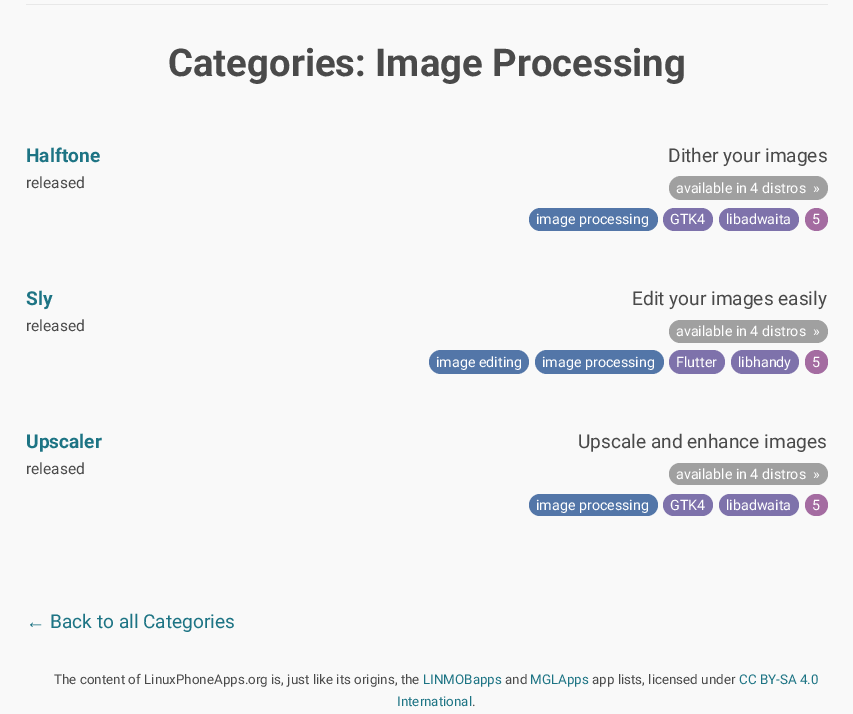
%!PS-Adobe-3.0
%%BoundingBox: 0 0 853 714
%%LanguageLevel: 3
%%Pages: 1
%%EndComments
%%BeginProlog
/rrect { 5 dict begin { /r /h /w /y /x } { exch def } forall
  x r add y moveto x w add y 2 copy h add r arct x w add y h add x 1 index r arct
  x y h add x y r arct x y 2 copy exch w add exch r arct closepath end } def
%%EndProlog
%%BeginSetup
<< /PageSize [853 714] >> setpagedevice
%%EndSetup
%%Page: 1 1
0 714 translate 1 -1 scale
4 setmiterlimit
0.976 setgray
0 0 853 714 rectfill
0.91 setgray
26 4 802 1 rectfill
0.627 setgray
669 176 159 24 12 rrect fill
0.325 0.463 0.659 setrgbcolor
529 208 129 23 11.5 rrect fill
0.494 0.447 0.671 setrgbcolor
663 208 50 23 11.5 rrect fill
719 208 80 23 11.5 rrect fill
0.643 0.424 0.631 setrgbcolor
newpath 816.5 219.5 11.5 0 360 arc closepath fill
0.627 setgray
669 320 159 23 11.5 rrect fill
0.325 0.463 0.659 setrgbcolor
429 350 100 24 12 rrect fill
535 350 129 24 12 rrect fill
0.494 0.447 0.671 setrgbcolor
669 350 56 24 12 rrect fill
731 350 68 24 12 rrect fill
0.643 0.424 0.631 setrgbcolor
805 350 23 24 11.5 rrect fill
0.627 setgray
669 463 159 22 11 rrect fill
0.325 0.463 0.659 setrgbcolor
529 494 129 22 11 rrect fill
0.494 0.447 0.671 setrgbcolor
663 494 50 22 11 rrect fill
719 494 80 22 11 rrect fill
0.643 0.424 0.631 setrgbcolor
805 494 23 22 11 rrect fill
/Roboto-Bold [38.25 0 0 -38.25 0 0] selectfont
0.29 setgray
168 76 moveto (Categories: Image Processing) show
/Roboto-Bold [19.1 0 0 -19.1 0 0] selectfont
0.114 0.455 0.518 setrgbcolor
26 162 moveto (Halftone) show
/Roboto-Regular [19.1 0 0 -19.1 0 0] selectfont
0.29 setgray
668 162 moveto (Dither your images) show
/Roboto-Regular [15.5 0 0 -15.5 0 0] selectfont
26 188 moveto (released) show
/Roboto-Regular [14.25 0 0 -14.25 0 0] selectfont
1 setgray
676 193 moveto (available in 4 distros) show
813 193 moveto (») show
536 224 moveto (image processing) show
670 224 moveto (GTK4) show
726 224 moveto (libadwaita) show
812 224 moveto (5) show
/Roboto-Bold [19.1 0 0 -19.1 0 0] selectfont
0.114 0.455 0.518 setrgbcolor
26 305 moveto (Sly) show
/Roboto-Regular [19.1 0 0 -19.1 0 0] selectfont
0.29 setgray
632 305 moveto (Edit your images easily) show
/Roboto-Regular [15.5 0 0 -15.5 0 0] selectfont
26 331 moveto (released) show
/Roboto-Regular [14.25 0 0 -14.25 0 0] selectfont
1 setgray
676 336 moveto (available in 4 distros) show
813 336 moveto (») show
436 367 moveto (image editing) show
542 367 moveto (image processing) show
676 367 moveto (Flutter) show
738 367 moveto (libhandy) show
812 367 moveto (5) show
/Roboto-Bold [19.1 0 0 -19.1 0 0] selectfont
0.114 0.455 0.518 setrgbcolor
26 448 moveto (Upscaler) show
/Roboto-Regular [19.1 0 0 -19.1 0 0] selectfont
0.29 setgray
578 448 moveto (Upscale and enhance images) show
/Roboto-Regular [15.5 0 0 -15.5 0 0] selectfont
26 474 moveto (released) show
/Roboto-Regular [14.25 0 0 -14.25 0 0] selectfont
1 setgray
676 479 moveto (available in 4 distros) show
813 479 moveto (») show
536 510 moveto (image processing) show
670 510 moveto (GTK4) show
726 510 moveto (libadwaita) show
812 510 moveto (5) show
/LiberationSans-Regular [19.1 0 0 -19.1 0 0] selectfont
0.114 0.455 0.518 setrgbcolor
26 628 moveto (←) show
/Roboto-Regular [19.1 0 0 -19.1 0 0] selectfont
50 628 moveto (Back to all Categories) show
/Roboto-Regular [13.4 0 0 -13.4 0 0] selectfont
0.29 setgray
54 684 moveto (The content of LinuxPhoneApps.org is, just like its origins, the) show
0.114 0.455 0.518 setrgbcolor
423 684 moveto (LINMOBapps) show
0.29 setgray
505 684 moveto (and) show
0.114 0.455 0.518 setrgbcolor
530 684 moveto (MGLApps) show
0.29 setgray
592 684 moveto (app lists, licensed under) show
0.114 0.455 0.518 setrgbcolor
739 684 moveto (CC BY-SA 4.0) show
397 706 moveto (International) show
0.29 setgray
472 706 moveto (.) show
showpage
%%EOF
